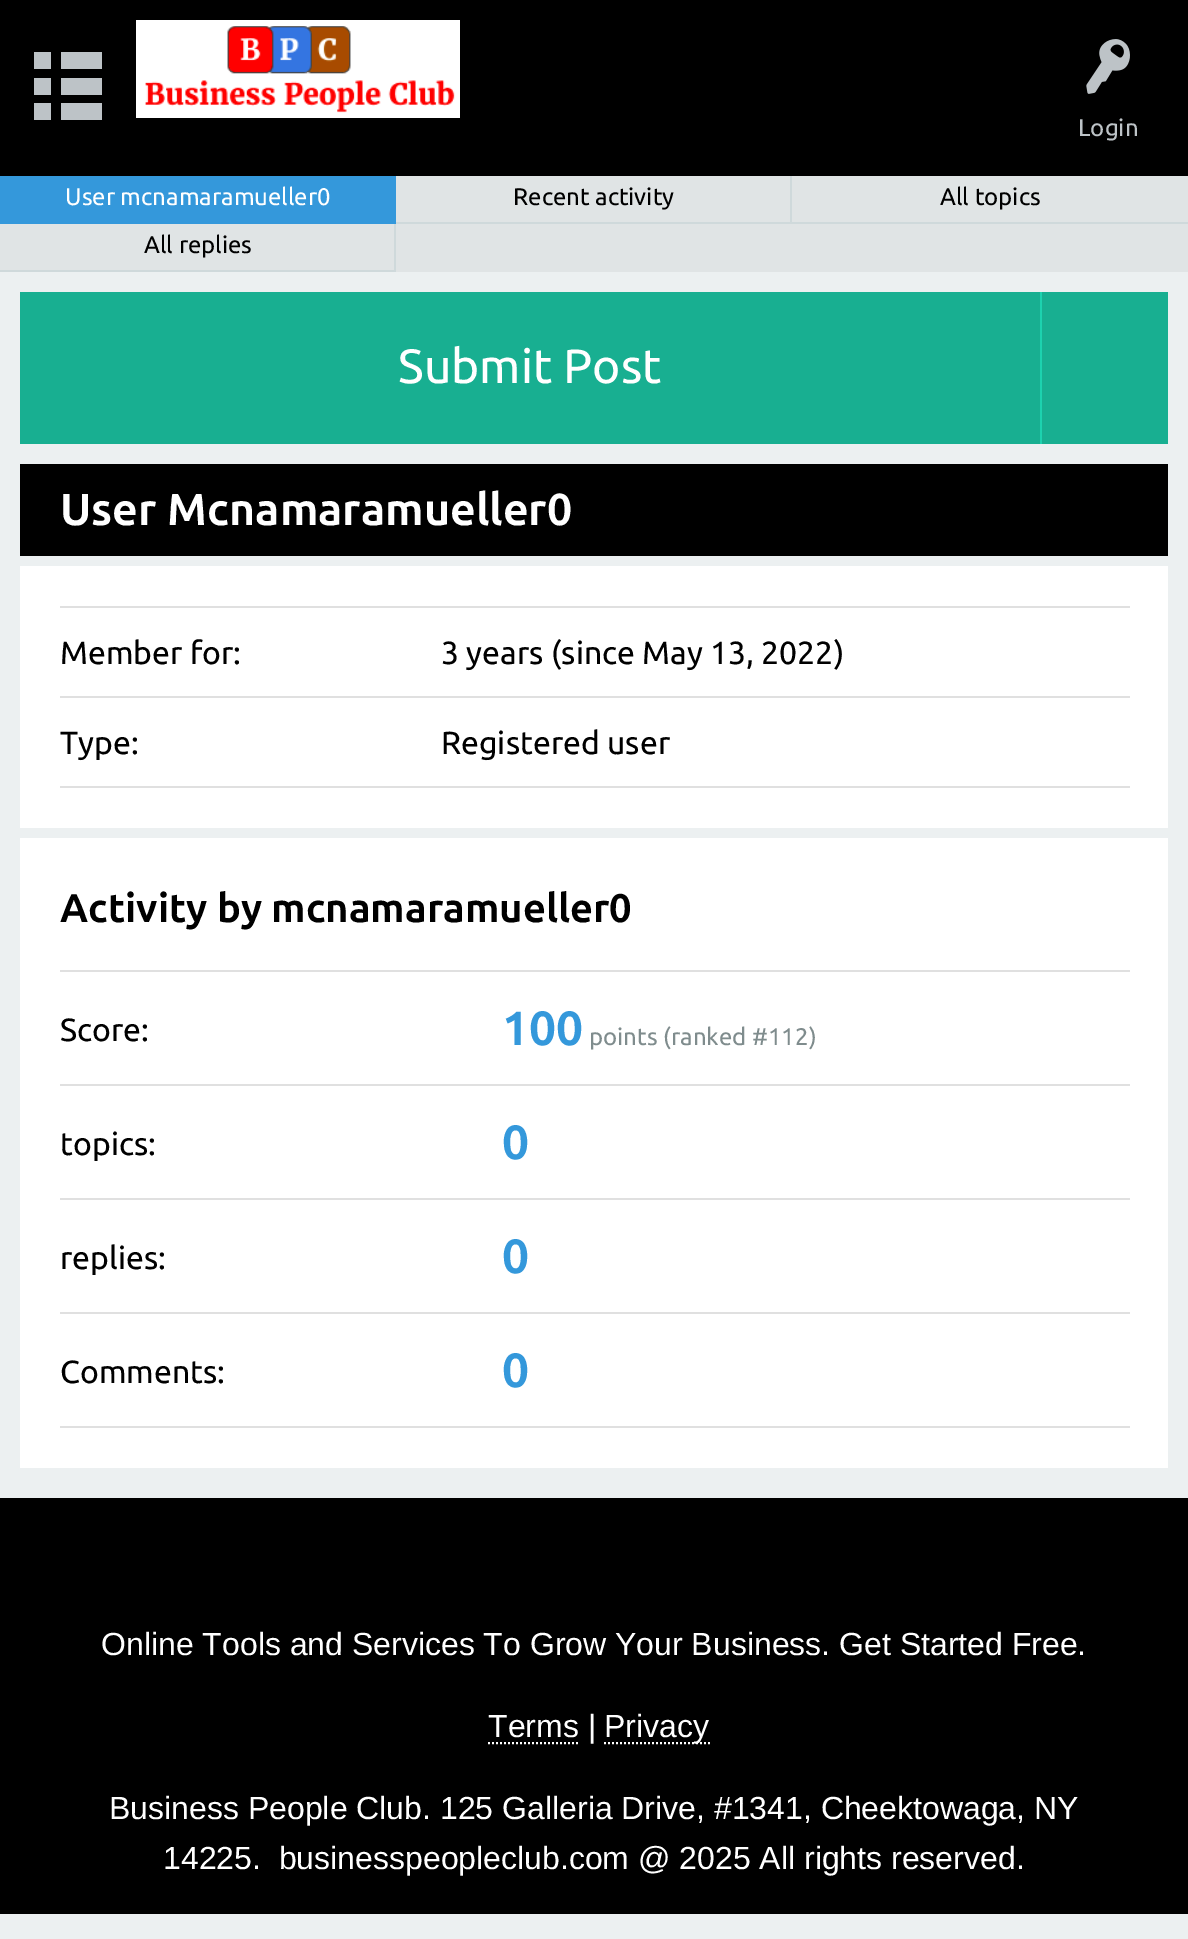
%!PS-Adobe-3.0
%%BoundingBox: 0 0 1188 1939
%%LanguageLevel: 3
%%Pages: 1
%%EndComments
%%BeginProlog
/drawimage { 5 dict begin { /h /w /y /x /name } { exch def } forall
  gsave x y translate w h scale
  w h 8 [w 0 0 h 0 0] name (r) file false 3 colorimage grestore end } def
%%EndProlog
%%BeginSetup
<< /PageSize [1188 1939] >> setpagedevice
%%EndSetup
%%Page: 1 1
0 1939 translate 1 -1 scale
4 setmiterlimit
0.925 0.941 0.945 setrgbcolor
0 0 1188 1939 rectfill
0 setgray
0 0 1188 176 rectfill
0.741 0.765 0.78 setrgbcolor
newpath 34 120 moveto 34 103 lineto 51 103 lineto 51 120 lineto closepath 34 95 moveto 34 78 lineto 51 78 lineto 51 95 lineto closepath 34 69 moveto 34 52 lineto 51 52 lineto 51 69 lineto closepath 61 120 moveto 61 103 lineto 102 103 lineto 102 120 lineto closepath 61 95 moveto 61 78 lineto 102 78 lineto 102 95 lineto closepath 61 69 moveto 61 52 lineto 102 52 lineto 102 69 lineto closepath fill
(images/1.raw) 136 20 324 98 drawimage
(images/2.raw) 1086 39 44 55 drawimage
0.878 0.894 0.898 setrgbcolor
0 176 1188 96 rectfill
0.204 0.596 0.859 setrgbcolor
0 176 396 48 rectfill
gsave
396 176 396 48 rectclip
0.812 0.851 0.859 setrgbcolor
newpath 198 -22 moveto 990 -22 lineto 990 422 lineto 198 422 lineto closepath 394 174 moveto 790 174 lineto 790 222 lineto 394 222 lineto closepath eofill
grestore
0.812 0.851 0.859 setrgbcolor
792 222 396 2 rectfill
gsave
0 224 396 48 rectclip
newpath -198 26 moveto 594 26 lineto 594 470 lineto -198 470 lineto closepath -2 222 moveto 394 222 lineto 394 270 lineto -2 270 lineto closepath eofill
grestore
0.094 0.686 0.569 setrgbcolor
20 292 1020 152 rectfill
1042 292 126 152 rectfill
0.114 0.824 0.686 setrgbcolor
1040 292 2 152 rectfill
0 setgray
20 464 1148 92 rectfill
1 setgray
20 566 1148 262 rectfill
0.878 setgray
60 606 1070 2 rectfill
60 696 1070 2 rectfill
60 786 1070 2 rectfill
1 setgray
20 838 1148 630 rectfill
0.878 setgray
60 970 1070 2 rectfill
60 1084 1070 2 rectfill
60 1198 1070 2 rectfill
60 1312 1070 2 rectfill
60 1426 1070 2 rectfill
0 setgray
0 1498 1188 416 rectfill
1 setgray
2 setlinewidth
[2 2] 0 setdash
newpath 488 1743 moveto 578 1743 lineto stroke
newpath 604 1743 moveto 710 1743 lineto stroke
/Ubuntu-Regular [24 0 0 -24 0 0] selectfont
0.741 0.765 0.78 setrgbcolor
1078 136 moveto (Login) show
1 setgray
65 205 moveto (User mcnamaramueller0) show
0 setgray
513 205 moveto (Recent activity) show
940 205 moveto (All topics) show
144 253 moveto (All replies) show
/Ubuntu-Regular [48 0 0 -48 0 0] selectfont
1 setgray
398 383 moveto (Submit Post) show
/Ubuntu-Bold [44.75 0 0 -44.75 0 0] selectfont
60 525 moveto (User Mcnamaramueller0) show
/Ubuntu-Regular [32 0 0 -32 0 0] selectfont
0 setgray
60 664 moveto (Member for:) show
441 664 moveto (3 years \(since May 13, 2022\)) show
60 754 moveto (Type:) show
441 754 moveto (Registered user) show
/Ubuntu-Bold [40 0 0 -40 0 0] selectfont
60 922 moveto (Activity by mcnamaramueller0) show
/Ubuntu-Regular [32 0 0 -32 0 0] selectfont
60 1041 moveto (Score:) show
/Ubuntu-Bold [48 0 0 -48 0 0] selectfont
0.204 0.596 0.859 setrgbcolor
502 1045 moveto (100) show
/Ubuntu-Regular [24 0 0 -24 0 0] selectfont
0.498 0.549 0.553 setrgbcolor
589 1045 moveto (points \(ranked #112\)) show
/Ubuntu-Regular [32 0 0 -32 0 0] selectfont
0 setgray
60 1155 moveto (topics:) show
/Ubuntu-Bold [48 0 0 -48 0 0] selectfont
0.204 0.596 0.859 setrgbcolor
502 1159 moveto (0) show
/Ubuntu-Regular [32 0 0 -32 0 0] selectfont
0 setgray
60 1269 moveto (replies:) show
/Ubuntu-Bold [48 0 0 -48 0 0] selectfont
0.204 0.596 0.859 setrgbcolor
502 1273 moveto (0) show
/Ubuntu-Regular [32 0 0 -32 0 0] selectfont
0 setgray
60 1383 moveto (Comments:) show
/Ubuntu-Bold [48 0 0 -48 0 0] selectfont
0.204 0.596 0.859 setrgbcolor
502 1387 moveto (0) show
/LiberationSans-Regular [32 0 0 -32 0 0] selectfont
1 setgray
101 1655 moveto (Online Tools and Services To Grow Your Business. Get Started Free.) show
488 1737 moveto (Terms |) show
604 1737 moveto (Privacy) show
109 1819 moveto (Business People Club. 125 Galleria Drive, #1341, Cheektowaga, NY) show
163 1869 moveto (14225.  businesspeopleclub.com @ 2025 All rights reserved.) show
showpage
%%EOF
